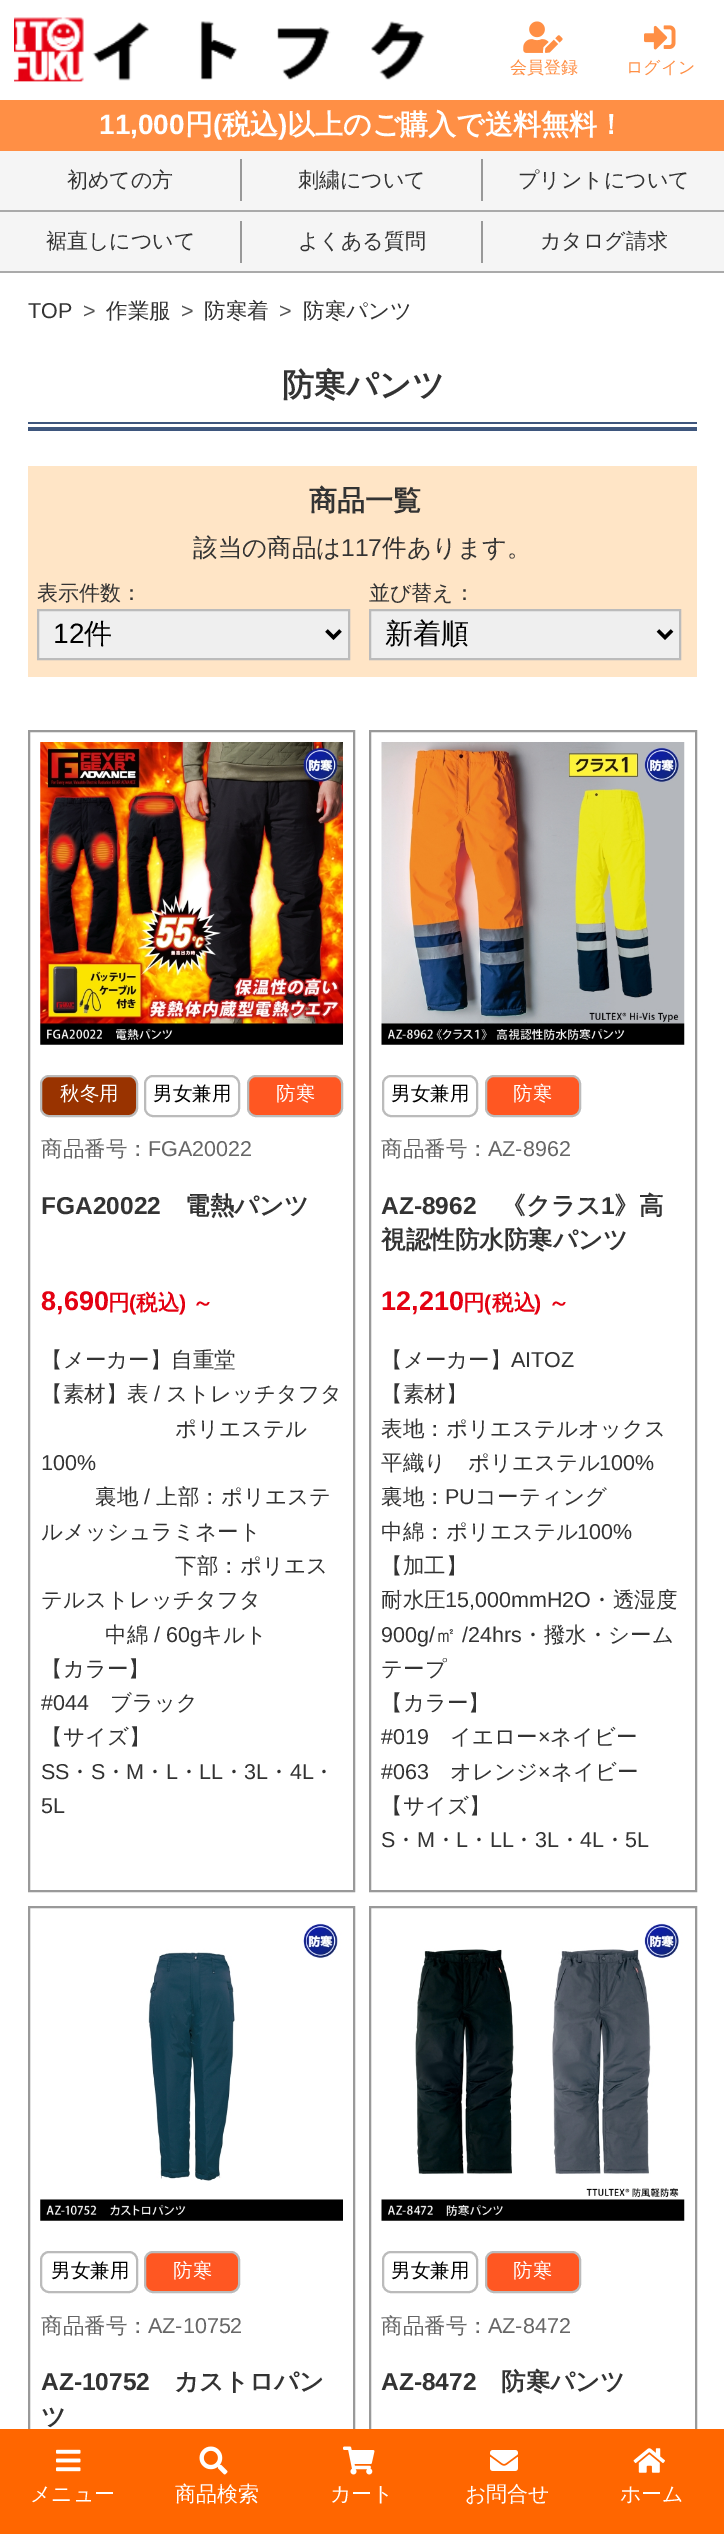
%!PS-Adobe-3.0
%%BoundingBox: 0 0 724 2534
%%LanguageLevel: 3
%%Pages: 1
%%EndComments
%%BeginProlog
/rrect { 5 dict begin { /r /h /w /y /x } { exch def } forall
  x r add y moveto x w add y 2 copy h add r arct x w add y h add x 1 index r arct
  x y h add x y r arct x y 2 copy exch w add exch r arct closepath end } def
/drawimage { 5 dict begin { /h /w /y /x /name } { exch def } forall
  gsave x y translate w h scale
  w h 8 [w 0 0 h 0 0] name (r) file false 3 colorimage grestore end } def
%%EndProlog
%%BeginSetup
<< /PageSize [724 2534] >> setpagedevice
%%EndSetup
%%Page: 1 1
0 2534 translate 1 -1 scale
4 setmiterlimit
1 setgray
0 0 724 2534 rectfill
(images/1.raw) 14 17 411 65 drawimage
(images/2.raw) 523 21 40 32 drawimage
(images/3.raw) 644 25 32 25 drawimage
1 0.561 0.271 setrgbcolor
0 100 724 51 rectfill
0.961 setgray
0 151 724 120 rectfill
0.667 setgray
0 210 724 2 rectfill
0.6 setgray
240 159 2 42 rectfill
481 159 2 42 rectfill
0.667 setgray
0 271 724 2 rectfill
0.6 setgray
240 221 2 42 rectfill
481 221 2 42 rectfill
0.243 0.337 0.49 setrgbcolor
28 427 669 4 rectfill
28 422 669 2 rectfill
1 0.898 0.776 setrgbcolor
28 466 669 211 rectfill
0.937 setgray
newpath 38 610 moveto 349 610 lineto 349 659 lineto 38 659 lineto closepath gsave fill grestore
0.733 setgray
2 setlinewidth
stroke
0 setgray
3.5 setlinewidth
newpath 326.5 630.5 moveto 333.5 637.5 lineto 340.5 630.5 lineto stroke
0.937 setgray
newpath 370 610 moveto 680 610 lineto 680 659 lineto 370 659 lineto closepath gsave fill grestore
0.733 setgray
2 setlinewidth
stroke
0 setgray
3.5 setlinewidth
newpath 658 630.5 moveto 665 637.5 lineto 672 630.5 lineto stroke
0.6 setgray
2 setlinewidth
29 731 325 1160 rectstroke
(images/4.raw) 40 742 303 303 drawimage
0.6 0.2 0 setrgbcolor
41 1076 96 40 8 rrect gsave fill grestore
0.733 setgray
stroke
145 1076 94 40 8 rrect stroke
1 0.341 0.133 setrgbcolor
248 1076 94 40 8 rrect gsave fill grestore
0.733 setgray
stroke
0.6 setgray
370 731 326 1160 rectstroke
(images/5.raw) 381 742 304 303 drawimage
0.733 setgray
383 1076 94 40 8 rrect stroke
1 0.341 0.133 setrgbcolor
486 1076 94 40 8 rrect gsave fill grestore
0.733 setgray
stroke
0.6 setgray
29 1907 325 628 rectstroke
(images/6.raw) 40 1923 303 298 drawimage
0.733 setgray
41 2252 96 40 8 rrect stroke
1 0.341 0.133 setrgbcolor
145 2252 94 40 8 rrect gsave fill grestore
0.733 setgray
stroke
0.6 setgray
370 1907 326 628 rectstroke
(images/7.raw) 381 1923 304 298 drawimage
0.733 setgray
383 2252 94 40 8 rrect stroke
1 0.341 0.133 setrgbcolor
486 2252 94 40 8 rrect gsave fill grestore
0.733 setgray
stroke
1 0.4 0 setrgbcolor
0 2429 724 105 rectfill
(images/8.raw) 56 2449 25 23 drawimage
(images/9.raw) 199 2446 29 29 drawimage
(images/10.raw) 343 2446 32 29 drawimage
(images/11.raw) 490 2450 28 21 drawimage
(images/12.raw) 633 2448 32 25 drawimage
/WenQuanYiZenHei-Medium [17 0 0 -17 0 0] selectfont
1 0.561 0.271 setrgbcolor
510 73 moveto (会員登録) show
626 73 moveto (ログイン) show
/LiberationSans-Bold [28 0 0 -28 0 0] selectfont
1 setgray
99 134 moveto (11,000) show
/WenQuanYiZenHei-Bold [28 0 0 -28 0 0] selectfont
185 134 moveto (円) show
/LiberationSans-Bold [28 0 0 -28 0 0] selectfont
213 134 moveto (\() show
/WenQuanYiZenHei-Bold [28 0 0 -28 0 0] selectfont
222 134 moveto (税込) show
/LiberationSans-Bold [28 0 0 -28 0 0] selectfont
278 134 moveto (\)) show
/WenQuanYiZenHei-Bold [28 0 0 -28 0 0] selectfont
287 134 moveto (以上のご購入で送料無料！) show
/WenQuanYiZenHei-Medium [21 0 0 -21 0 0] selectfont
0.2 setgray
67 187 moveto (初めての方) show
298 187 moveto (刺繍について) show
518 187 moveto (プリントについて) show
46 248 moveto (裾直しについて) show
298 248 moveto (よくある質問) show
540 248 moveto (カタログ請求) show
/LiberationSans-Regular [21.5 0 0 -21.5 0 0] selectfont
28 318 moveto (TOP) show
0.333 setgray
83 318 moveto (>) show
/WenQuanYiZenHei-Medium [21.5 0 0 -21.5 0 0] selectfont
0.2 setgray
106 318 moveto (作業服) show
/LiberationSans-Regular [21.5 0 0 -21.5 0 0] selectfont
0.333 setgray
181 318 moveto (>) show
/WenQuanYiZenHei-Medium [21.5 0 0 -21.5 0 0] selectfont
0.2 setgray
204 318 moveto (防寒着) show
/LiberationSans-Regular [21.5 0 0 -21.5 0 0] selectfont
0.333 setgray
279 318 moveto (>) show
/WenQuanYiZenHei-Medium [21.5 0 0 -21.5 0 0] selectfont
0.2 setgray
303 318 moveto (防寒パンツ) show
/WenQuanYiZenHei-Bold [32 0 0 -32 0 0] selectfont
282 396 moveto (防寒パンツ) show
/WenQuanYiZenHei-Bold [28 0 0 -28 0 0] selectfont
309 510 moveto (商品一覧) show
/WenQuanYiZenHei-Medium [24.5 0 0 -24.5 0 0] selectfont
193 556 moveto (該当の商品は) show
/LiberationSans-Regular [24.5 0 0 -24.5 0 0] selectfont
341 556 moveto (117) show
/WenQuanYiZenHei-Medium [24.5 0 0 -24.5 0 0] selectfont
382 556 moveto (件あります。) show
/WenQuanYiZenHei-Medium [21 0 0 -21 0 0] selectfont
37 600 moveto (表示件数：) show
/LiberationSans-Regular [28 0 0 -28 0 0] selectfont
0 setgray
53 643 moveto (12) show
/WenQuanYiZenHei-Medium [28 0 0 -28 0 0] selectfont
84 643 moveto (件) show
/WenQuanYiZenHei-Medium [21 0 0 -21 0 0] selectfont
0.2 setgray
369 600 moveto (並び替え：) show
/WenQuanYiZenHei-Medium [28 0 0 -28 0 0] selectfont
0 setgray
385 643 moveto (新着順) show
/WenQuanYiZenHei-Medium [19.5 0 0 -19.5 0 0] selectfont
1 setgray
60 1100 moveto (秋冬用) show
0 setgray
153 1100 moveto (男女兼用) show
1 setgray
276 1100 moveto (防寒) show
/WenQuanYiZenHei-Medium [21.5 0 0 -21.5 0 0] selectfont
0.4 setgray
41 1156 moveto (商品番号：) show
/LiberationSans-Regular [21.5 0 0 -21.5 0 0] selectfont
148 1156 moveto (FGA20022) show
/LiberationSans-Bold [24.5 0 0 -24.5 0 0] selectfont
0.2 setgray
41 1214 moveto (FGA20022) show
/WenQuanYiZenHei-Bold [24.5 0 0 -24.5 0 0] selectfont
185 1214 moveto (電熱パンツ) show
/LiberationSans-Bold [27 0 0 -27 0 0] selectfont
0.894 0.004 0.071 setrgbcolor
41 1310 moveto (8,690) show
/WenQuanYiZenHei-Bold [21.5 0 0 -21.5 0 0] selectfont
108 1310 moveto (円) show
/LiberationSans-Bold [21.5 0 0 -21.5 0 0] selectfont
129 1310 moveto (\() show
/WenQuanYiZenHei-Bold [21.5 0 0 -21.5 0 0] selectfont
136 1310 moveto (税込) show
/LiberationSans-Bold [21.5 0 0 -21.5 0 0] selectfont
179 1310 moveto (\)) show
/WenQuanYiZenHei-Bold [21.5 0 0 -21.5 0 0] selectfont
192 1310 moveto (～) show
/WenQuanYiZenHei-Medium [21.5 0 0 -21.5 0 0] selectfont
0.2 setgray
41 1367 moveto (【メーカー】自重堂) show
41 1401 moveto (【素材】表) show
/LiberationSans-Regular [21.5 0 0 -21.5 0 0] selectfont
154 1401 moveto (/) show
/WenQuanYiZenHei-Medium [21.5 0 0 -21.5 0 0] selectfont
166 1401 moveto (ストレッチタフタ) show
175 1436 moveto (ポリエステル) show
/LiberationSans-Regular [21.5 0 0 -21.5 0 0] selectfont
41 1470 moveto (100%) show
/WenQuanYiZenHei-Medium [21.5 0 0 -21.5 0 0] selectfont
95 1504 moveto (裏地) show
/LiberationSans-Regular [21.5 0 0 -21.5 0 0] selectfont
144 1504 moveto (/) show
/WenQuanYiZenHei-Medium [21.5 0 0 -21.5 0 0] selectfont
156 1504 moveto (上部：ポリエステ) show
41 1539 moveto (ルメッシュラミネート) show
175 1573 moveto (下部：ポリエス) show
41 1607 moveto (テルストレッチタフタ) show
105 1642 moveto (中綿) show
/LiberationSans-Regular [21.5 0 0 -21.5 0 0] selectfont
154 1642 moveto (/ 60g) show
/WenQuanYiZenHei-Medium [21.5 0 0 -21.5 0 0] selectfont
201 1642 moveto (キルト) show
41 1676 moveto (【カラー】) show
/LiberationSans-Regular [21.5 0 0 -21.5 0 0] selectfont
41 1710 moveto (#044) show
/WenQuanYiZenHei-Medium [21.5 0 0 -21.5 0 0] selectfont
110 1710 moveto (ブラック) show
41 1744 moveto (【サイズ】) show
/LiberationSans-Regular [21.5 0 0 -21.5 0 0] selectfont
41 1779 moveto (SS) show
/WenQuanYiZenHei-Medium [21.5 0 0 -21.5 0 0] selectfont
69 1779 moveto (・) show
/LiberationSans-Regular [21.5 0 0 -21.5 0 0] selectfont
91 1779 moveto (S) show
/WenQuanYiZenHei-Medium [21.5 0 0 -21.5 0 0] selectfont
105 1779 moveto (・) show
/LiberationSans-Regular [21.5 0 0 -21.5 0 0] selectfont
126 1779 moveto (M) show
/WenQuanYiZenHei-Medium [21.5 0 0 -21.5 0 0] selectfont
144 1779 moveto (・) show
/LiberationSans-Regular [21.5 0 0 -21.5 0 0] selectfont
166 1779 moveto (L) show
/WenQuanYiZenHei-Medium [21.5 0 0 -21.5 0 0] selectfont
178 1779 moveto (・) show
/LiberationSans-Regular [21.5 0 0 -21.5 0 0] selectfont
199 1779 moveto (LL) show
/WenQuanYiZenHei-Medium [21.5 0 0 -21.5 0 0] selectfont
223 1779 moveto (・) show
/LiberationSans-Regular [21.5 0 0 -21.5 0 0] selectfont
244 1779 moveto (3L) show
/WenQuanYiZenHei-Medium [21.5 0 0 -21.5 0 0] selectfont
268 1779 moveto (・) show
/LiberationSans-Regular [21.5 0 0 -21.5 0 0] selectfont
290 1779 moveto (4L) show
/WenQuanYiZenHei-Medium [21.5 0 0 -21.5 0 0] selectfont
313 1779 moveto (・) show
/LiberationSans-Regular [21.5 0 0 -21.5 0 0] selectfont
41 1813 moveto (5L) show
/WenQuanYiZenHei-Medium [19.5 0 0 -19.5 0 0] selectfont
0 setgray
391 1100 moveto (男女兼用) show
1 setgray
513 1100 moveto (防寒) show
/WenQuanYiZenHei-Medium [21.5 0 0 -21.5 0 0] selectfont
0.4 setgray
381 1156 moveto (商品番号：) show
/LiberationSans-Regular [21.5 0 0 -21.5 0 0] selectfont
488 1156 moveto (AZ-8962) show
/LiberationSans-Bold [24.5 0 0 -24.5 0 0] selectfont
0.2 setgray
381 1214 moveto (AZ-8962) show
/WenQuanYiZenHei-Bold [24.5 0 0 -24.5 0 0] selectfont
501 1214 moveto (《クラス) show
/LiberationSans-Bold [24.5 0 0 -24.5 0 0] selectfont
601 1214 moveto (1) show
/WenQuanYiZenHei-Bold [24.5 0 0 -24.5 0 0] selectfont
614 1214 moveto (》高) show
381 1248 moveto (視認性防水防寒パンツ) show
/LiberationSans-Bold [27 0 0 -27 0 0] selectfont
0.894 0.004 0.071 setrgbcolor
381 1310 moveto (12,210) show
/WenQuanYiZenHei-Bold [21.5 0 0 -21.5 0 0] selectfont
463 1310 moveto (円) show
/LiberationSans-Bold [21.5 0 0 -21.5 0 0] selectfont
484 1310 moveto (\() show
/WenQuanYiZenHei-Bold [21.5 0 0 -21.5 0 0] selectfont
492 1310 moveto (税込) show
/LiberationSans-Bold [21.5 0 0 -21.5 0 0] selectfont
534 1310 moveto (\)) show
/WenQuanYiZenHei-Bold [21.5 0 0 -21.5 0 0] selectfont
548 1310 moveto (～) show
/WenQuanYiZenHei-Medium [21.5 0 0 -21.5 0 0] selectfont
0.2 setgray
381 1367 moveto (【メーカー】) show
/LiberationSans-Regular [21.5 0 0 -21.5 0 0] selectfont
511 1367 moveto (AITOZ) show
/WenQuanYiZenHei-Medium [21.5 0 0 -21.5 0 0] selectfont
381 1401 moveto (【素材】) show
381 1436 moveto (表地：ポリエステルオックス) show
381 1470 moveto (平織り　ポリエステル) show
/LiberationSans-Regular [21.5 0 0 -21.5 0 0] selectfont
599 1470 moveto (100%) show
/WenQuanYiZenHei-Medium [21.5 0 0 -21.5 0 0] selectfont
381 1504 moveto (裏地：) show
/LiberationSans-Regular [21.5 0 0 -21.5 0 0] selectfont
445 1504 moveto (PU) show
/WenQuanYiZenHei-Medium [21.5 0 0 -21.5 0 0] selectfont
475 1504 moveto (コーティング) show
381 1539 moveto (中綿：ポリエステル) show
/LiberationSans-Regular [21.5 0 0 -21.5 0 0] selectfont
577 1539 moveto (100%) show
/WenQuanYiZenHei-Medium [21.5 0 0 -21.5 0 0] selectfont
381 1573 moveto (【加工】) show
381 1607 moveto (耐水圧) show
/LiberationSans-Regular [21.5 0 0 -21.5 0 0] selectfont
445 1607 moveto (15,000mmH2O) show
/WenQuanYiZenHei-Medium [21.5 0 0 -21.5 0 0] selectfont
591 1607 moveto (・透湿度) show
/LiberationSans-Regular [21.5 0 0 -21.5 0 0] selectfont
381 1642 moveto (900g/) show
/WenQuanYiZenHei-Medium [21.5 0 0 -21.5 0 0] selectfont
435 1642 moveto (㎡) show
/LiberationSans-Regular [21.5 0 0 -21.5 0 0] selectfont
462 1642 moveto (/24hrs) show
/WenQuanYiZenHei-Medium [21.5 0 0 -21.5 0 0] selectfont
522 1642 moveto (・撥水・シーム) show
381 1676 moveto (テープ) show
381 1710 moveto (【カラー】) show
/LiberationSans-Regular [21.5 0 0 -21.5 0 0] selectfont
381 1744 moveto (#019) show
/WenQuanYiZenHei-Medium [21.5 0 0 -21.5 0 0] selectfont
450 1744 moveto (イエロー) show
/LiberationSans-Regular [21.5 0 0 -21.5 0 0] selectfont
538 1744 moveto (×) show
/WenQuanYiZenHei-Medium [21.5 0 0 -21.5 0 0] selectfont
550 1744 moveto (ネイビー) show
/LiberationSans-Regular [21.5 0 0 -21.5 0 0] selectfont
381 1779 moveto (#063) show
/WenQuanYiZenHei-Medium [21.5 0 0 -21.5 0 0] selectfont
450 1779 moveto (オレンジ) show
/LiberationSans-Regular [21.5 0 0 -21.5 0 0] selectfont
538 1779 moveto (×) show
/WenQuanYiZenHei-Medium [21.5 0 0 -21.5 0 0] selectfont
551 1779 moveto (ネイビー) show
381 1813 moveto (【サイズ】) show
/LiberationSans-Regular [21.5 0 0 -21.5 0 0] selectfont
381 1847 moveto (S) show
/WenQuanYiZenHei-Medium [21.5 0 0 -21.5 0 0] selectfont
395 1847 moveto (・) show
/LiberationSans-Regular [21.5 0 0 -21.5 0 0] selectfont
417 1847 moveto (M) show
/WenQuanYiZenHei-Medium [21.5 0 0 -21.5 0 0] selectfont
435 1847 moveto (・) show
/LiberationSans-Regular [21.5 0 0 -21.5 0 0] selectfont
456 1847 moveto (L) show
/WenQuanYiZenHei-Medium [21.5 0 0 -21.5 0 0] selectfont
468 1847 moveto (・) show
/LiberationSans-Regular [21.5 0 0 -21.5 0 0] selectfont
490 1847 moveto (LL) show
/WenQuanYiZenHei-Medium [21.5 0 0 -21.5 0 0] selectfont
513 1847 moveto (・) show
/LiberationSans-Regular [21.5 0 0 -21.5 0 0] selectfont
535 1847 moveto (3L) show
/WenQuanYiZenHei-Medium [21.5 0 0 -21.5 0 0] selectfont
559 1847 moveto (・) show
/LiberationSans-Regular [21.5 0 0 -21.5 0 0] selectfont
580 1847 moveto (4L) show
/WenQuanYiZenHei-Medium [21.5 0 0 -21.5 0 0] selectfont
604 1847 moveto (・) show
/LiberationSans-Regular [21.5 0 0 -21.5 0 0] selectfont
625 1847 moveto (5L) show
/WenQuanYiZenHei-Medium [19.5 0 0 -19.5 0 0] selectfont
0 setgray
51 2277 moveto (男女兼用) show
1 setgray
173 2277 moveto (防寒) show
/WenQuanYiZenHei-Medium [21.5 0 0 -21.5 0 0] selectfont
0.4 setgray
41 2333 moveto (商品番号：) show
/LiberationSans-Regular [21.5 0 0 -21.5 0 0] selectfont
148 2333 moveto (AZ-10752) show
/LiberationSans-Bold [24.5 0 0 -24.5 0 0] selectfont
0.2 setgray
41 2390 moveto (AZ-10752) show
/WenQuanYiZenHei-Bold [24.5 0 0 -24.5 0 0] selectfont
174 2390 moveto (カストロパン) show
41 2425 moveto (ツ) show
/WenQuanYiZenHei-Medium [19.5 0 0 -19.5 0 0] selectfont
0 setgray
391 2277 moveto (男女兼用) show
1 setgray
513 2277 moveto (防寒) show
/WenQuanYiZenHei-Medium [21.5 0 0 -21.5 0 0] selectfont
0.4 setgray
381 2333 moveto (商品番号：) show
/LiberationSans-Regular [21.5 0 0 -21.5 0 0] selectfont
488 2333 moveto (AZ-8472) show
/LiberationSans-Bold [24.5 0 0 -24.5 0 0] selectfont
0.2 setgray
381 2390 moveto (AZ-8472) show
/WenQuanYiZenHei-Bold [24.5 0 0 -24.5 0 0] selectfont
501 2390 moveto (防寒パンツ) show
/WenQuanYiZenHei-Medium [21 0 0 -21 0 0] selectfont
1 setgray
30 2501 moveto (メニュー) show
175 2501 moveto (商品検索) show
330 2501 moveto (カート) show
465 2501 moveto (お問合せ) show
620 2501 moveto (ホーム) show
showpage
%%EOF
